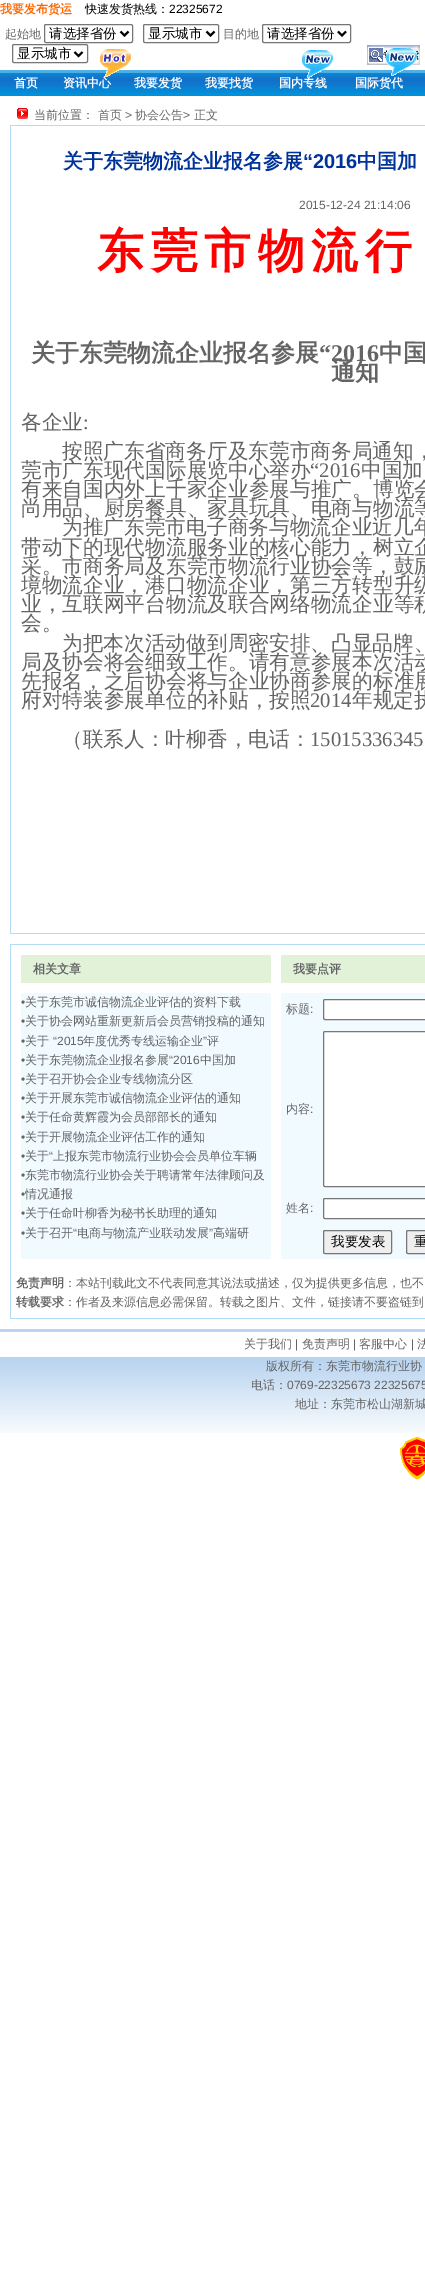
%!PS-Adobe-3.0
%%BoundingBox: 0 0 425 2274
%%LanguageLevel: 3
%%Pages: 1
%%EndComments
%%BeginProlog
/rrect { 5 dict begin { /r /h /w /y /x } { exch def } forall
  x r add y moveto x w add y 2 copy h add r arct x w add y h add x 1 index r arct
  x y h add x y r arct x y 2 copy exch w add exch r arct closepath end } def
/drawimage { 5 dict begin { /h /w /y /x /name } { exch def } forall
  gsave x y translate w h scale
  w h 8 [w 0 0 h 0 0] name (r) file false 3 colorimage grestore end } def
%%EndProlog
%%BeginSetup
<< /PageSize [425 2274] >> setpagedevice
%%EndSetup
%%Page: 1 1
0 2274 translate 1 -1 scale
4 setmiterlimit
1 setgray
0 0 425 2274 rectfill
0.463 setgray
44.5 24.5 88 18 1.5 rrect stroke
0 setgray
2 setlinewidth
newpath 120.5 31.5 moveto 124.5 35.5 lineto 128.5 31.5 lineto stroke
0.463 setgray
1 setlinewidth
143.5 24.5 75 18 1.5 rrect stroke
0 setgray
2 setlinewidth
newpath 206.5 31.5 moveto 210.5 35.5 lineto 214.5 31.5 lineto stroke
0.463 setgray
1 setlinewidth
262.5 24.5 88 18 1.5 rrect stroke
0 setgray
2 setlinewidth
newpath 338 31.5 moveto 342 35.5 lineto 346 31.5 lineto stroke
0.463 setgray
1 setlinewidth
12.5 44.5 75 18 1.5 rrect stroke
0 setgray
2 setlinewidth
newpath 74.5 52 moveto 78.5 56 lineto 82.5 52 lineto stroke
(images/1.raw) 367 45 53 20 drawimage
(images/2.raw) 0 70 341 26 drawimage
0.004 0.565 0.855 setrgbcolor
1 93 50 1 rectfill
(images/3.raw) 1 70 50 23 drawimage
52 93 70 1 rectfill
(images/5.raw) 52 70 70 23 drawimage
123 93 70 1 rectfill
(images/5.raw) 123 70 70 23 drawimage
194 93 70 1 rectfill
(images/5.raw) 194 70 70 23 drawimage
265 93 75 1 rectfill
(images/7.raw) 265 70 75 23 drawimage
341 93 84 3 rectfill
(images/8.raw) 416 70 9 23 drawimage
(images/7.raw) 341 70 75 23 drawimage
(images/9.raw) 386 48 31 28 drawimage
(images/10.raw) 17 108 11 11 drawimage
0.702 0.867 0.957 setrgbcolor
10 125 415 809 rectfill
1 setgray
11 126 414 807 rectfill
0.702 0.867 0.957 setrgbcolor
10 944 415 375 rectfill
1 setgray
11 945 414 373 rectfill
0.882 0.949 0.851 setrgbcolor
21 955 250 28 rectfill
281 955 144 28 rectfill
0.945 0.98 1 setrgbcolor
21 993 250 266 rectfill
281 993 144 266 rectfill
1 setgray
323.5 999.5 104 20 1.5 rrect gsave fill grestore
0.463 setgray
1 setlinewidth
stroke
1 setgray
323.5 1031.5 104 155 1.5 rrect gsave fill grestore
0.463 setgray
stroke
1 setgray
323.5 1198.5 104 20 1.5 rrect gsave fill grestore
0.463 setgray
stroke
0.937 setgray
323.5 1230.5 68 23 1.5 rrect gsave fill grestore
0.463 setgray
stroke
0.937 setgray
406.5 1230.5 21 23 1.5 rrect gsave fill grestore
0.463 setgray
stroke
0.725 0.831 0.937 setrgbcolor
0 1329 425 3 rectfill
(images/11.raw) 0 1357 425 76 drawimage
(images/12.raw) 400 1437 25 43 drawimage
/WenQuanYiZenHei-Bold [12 0 0 -12 0 0] selectfont
1 0.4 0 setrgbcolor
0 13 moveto (我要发布货运) show
/WenQuanYiZenHei-Medium [12 0 0 -12 0 0] selectfont
0 setgray
85 13 moveto (快速发货热线：) show
/LiberationSans-Regular [12 0 0 -12 0 0] selectfont
169 13 moveto (22325672) show
/WenQuanYiZenHei-Medium [12 0 0 -12 0 0] selectfont
0.392 setgray
5 38 moveto (起始地) show
/WenQuanYiZenHei-Medium [13.5 0 0 -13.5 0 0] selectfont
0 setgray
49 38 moveto (请选择省份) show
148 38 moveto (显示城市) show
/WenQuanYiZenHei-Medium [12 0 0 -12 0 0] selectfont
0.392 setgray
223 38 moveto (目的地) show
/WenQuanYiZenHei-Medium [13.5 0 0 -13.5 0 0] selectfont
0 setgray
267 38 moveto (请选择省份) show
17 58 moveto (显示城市) show
/WenQuanYiZenHei-Bold [12 0 0 -12 0 0] selectfont
1 setgray
14 87 moveto (首页) show
63 87 moveto (资讯中心) show
(images/4.raw) 100 49 31 28 drawimage
134 87 moveto (我要发货) show
205 87 moveto (我要找货) show
279 87 moveto (国内专线) show
(images/6.raw) 302 50 31 28 drawimage
355 87 moveto (国际货代) show
/WenQuanYiZenHei-Medium [12 0 0 -12 0 0] selectfont
0.392 setgray
34 119 moveto (当前位置： 首页) show
/LiberationSans-Regular [12 0 0 -12 0 0] selectfont
125 119 moveto (>) show
/WenQuanYiZenHei-Medium [12 0 0 -12 0 0] selectfont
135 119 moveto (协会公告) show
/LiberationSans-Regular [12 0 0 -12 0 0] selectfont
183 119 moveto (>) show
/WenQuanYiZenHei-Medium [12 0 0 -12 0 0] selectfont
194 119 moveto (正文) show
/WenQuanYiZenHei-Bold [20 0 0 -20 0 0] selectfont
0 0.2 0.6 setrgbcolor
63 168 moveto (关于东莞物流企业报名参展) show
/LiberationSans-Bold [20 0 0 -20 0 0] selectfont
303 168 moveto (“2016) show
/WenQuanYiZenHei-Bold [20 0 0 -20 0 0] selectfont
357 168 moveto (中国加) show
/LiberationSans-Regular [12 0 0 -12 0 0] selectfont
0.392 setgray
299 209 moveto (2015-12-24 21:14:06) show
/WenQuanYiZenHei-Bold [46.75 0 0 -46.75 0 0] selectfont
1 0 0 setrgbcolor
97 267 moveto 6.75 0 (东莞市物流行) ashow
/WenQuanYiZenHei-Bold [24 0 0 -24 0 0] selectfont
0.392 setgray
31 361 moveto (关于东莞物流企业报名参展) show
/LiberationSerif-Bold [24 0 0 -24 0 0] selectfont
319 361 moveto (“2016) show
/WenQuanYiZenHei-Bold [24 0 0 -24 0 0] selectfont
379 361 moveto (中国) show
331 380 moveto (通知) show
/WenQuanYiZenHei-Medium [20.7 0 0 -20.7 0 0] selectfont
21 429 moveto (各企业) show
/LiberationSerif-Regular [20.7 0 0 -20.7 0 0] selectfont
83 429 moveto (:) show
/WenQuanYiZenHei-Medium [20.7 0 0 -20.7 0 0] selectfont
62 458 moveto (按照广东省商务厅及东莞市商务局通知，) show
21 477 moveto (莞市广东现代国际展览中心举办) show
/LiberationSerif-Regular [20.7 0 0 -20.7 0 0] selectfont
310 477 moveto (“2016) show
/WenQuanYiZenHei-Medium [20.7 0 0 -20.7 0 0] selectfont
361 477 moveto (中国加) show
21 496 moveto (有来自国内外上千家企业参展与推广。博览会) show
21 515 moveto (尚用品、厨房餐具、家具玩具、电商与物流等) show
62 534 moveto (为推广东莞市电子商务与物流企业近几年) show
21 554 moveto (带动下的现代物流服务业的核心能力，树立企) show
21 573 moveto (采。市商务局及东莞市物流行业协会等，鼓励) show
21 592 moveto (境物流企业，港口物流企业，第三方转型升级) show
21 611 moveto (业，互联网平台物流及联合网络物流企业等积) show
21 630 moveto (会。) show
62 650 moveto (为把本次活动做到周密安排、凸显品牌、) show
21 669 moveto (局及协会将会细致工作。请有意参展本次活动) show
21 688 moveto (先报名，之后协会将与企业协商参展的标准展) show
21 707 moveto (府对特装参展单位的补贴，按照) show
/LiberationSerif-Regular [20.7 0 0 -20.7 0 0] selectfont
310 707 moveto (2014) show
/WenQuanYiZenHei-Medium [20.7 0 0 -20.7 0 0] selectfont
352 707 moveto (年规定执) show
62 746 moveto (（联系人：叶柳香，电话：) show
/LiberationSerif-Regular [20.7 0 0 -20.7 0 0] selectfont
310 746 moveto (15015336345) show
/WenQuanYiZenHei-Bold [12 0 0 -12 0 0] selectfont
33 973 moveto (相关文章) show
293 973 moveto (我要点评) show
/LiberationSans-Regular [12 0 0 -12 0 0] selectfont
21 1006 moveto (•) show
/WenQuanYiZenHei-Medium [12 0 0 -12 0 0] selectfont
25 1006 moveto (关于东莞市诚信物流企业评估的资料下载) show
/LiberationSans-Regular [12 0 0 -12 0 0] selectfont
21 1025 moveto (•) show
/WenQuanYiZenHei-Medium [12 0 0 -12 0 0] selectfont
25 1025 moveto (关于协会网站重新更新后会员营销投稿的通知) show
25 1045 moveto (关于) show
/LiberationSans-Regular [12 0 0 -12 0 0] selectfont
53 1045 moveto (“2015) show
/WenQuanYiZenHei-Medium [12 0 0 -12 0 0] selectfont
83 1045 moveto (年度优秀专线运输企业) show
/LiberationSans-Regular [12 0 0 -12 0 0] selectfont
203 1045 moveto (”) show
/WenQuanYiZenHei-Medium [12 0 0 -12 0 0] selectfont
207 1045 moveto (评) show
/LiberationSans-Regular [12 0 0 -12 0 0] selectfont
21 1045 moveto (•) show
21 1064 moveto (•) show
/WenQuanYiZenHei-Medium [12 0 0 -12 0 0] selectfont
25 1064 moveto (关于东莞物流企业报名参展) show
/LiberationSans-Regular [12 0 0 -12 0 0] selectfont
169 1064 moveto (“2016) show
/WenQuanYiZenHei-Medium [12 0 0 -12 0 0] selectfont
200 1064 moveto (中国加) show
/LiberationSans-Regular [12 0 0 -12 0 0] selectfont
21 1083 moveto (•) show
/WenQuanYiZenHei-Medium [12 0 0 -12 0 0] selectfont
25 1083 moveto (关于召开协会企业专线物流分区) show
/LiberationSans-Regular [12 0 0 -12 0 0] selectfont
21 1102 moveto (•) show
/WenQuanYiZenHei-Medium [12 0 0 -12 0 0] selectfont
25 1102 moveto (关于开展东莞市诚信物流企业评估的通知) show
/LiberationSans-Regular [12 0 0 -12 0 0] selectfont
21 1121 moveto (•) show
/WenQuanYiZenHei-Medium [12 0 0 -12 0 0] selectfont
25 1121 moveto (关于任命黄辉霞为会员部部长的通知) show
/LiberationSans-Regular [12 0 0 -12 0 0] selectfont
21 1141 moveto (•) show
/WenQuanYiZenHei-Medium [12 0 0 -12 0 0] selectfont
25 1141 moveto (关于开展物流企业评估工作的通知) show
25 1160 moveto (关于) show
/LiberationSans-Regular [12 0 0 -12 0 0] selectfont
49 1160 moveto (“) show
/WenQuanYiZenHei-Medium [12 0 0 -12 0 0] selectfont
53 1160 moveto (上报东莞市物流行业协会会员单位车辆) show
/LiberationSans-Regular [12 0 0 -12 0 0] selectfont
21 1160 moveto (•) show
21 1179 moveto (•) show
/WenQuanYiZenHei-Medium [12 0 0 -12 0 0] selectfont
25 1179 moveto (东莞市物流行业协会关于聘请常年法律顾问及) show
/LiberationSans-Regular [12 0 0 -12 0 0] selectfont
21 1198 moveto (•) show
/WenQuanYiZenHei-Medium [12 0 0 -12 0 0] selectfont
25 1198 moveto (情况通报) show
/LiberationSans-Regular [12 0 0 -12 0 0] selectfont
21 1217 moveto (•) show
/WenQuanYiZenHei-Medium [12 0 0 -12 0 0] selectfont
25 1217 moveto (关于任命叶柳香为秘书长助理的通知) show
25 1237 moveto (关于召开) show
/LiberationSans-Regular [12 0 0 -12 0 0] selectfont
73 1237 moveto (“) show
/WenQuanYiZenHei-Medium [12 0 0 -12 0 0] selectfont
77 1237 moveto (电商与物流产业联动发展) show
/LiberationSans-Regular [12 0 0 -12 0 0] selectfont
209 1237 moveto (”) show
/WenQuanYiZenHei-Medium [12 0 0 -12 0 0] selectfont
213 1237 moveto (高端研) show
/LiberationSans-Regular [12 0 0 -12 0 0] selectfont
21 1237 moveto (•) show
/WenQuanYiZenHei-Medium [12 0 0 -12 0 0] selectfont
286 1013 moveto (标题) show
/LiberationSans-Regular [12 0 0 -12 0 0] selectfont
310 1013 moveto (:) show
/WenQuanYiZenHei-Medium [12 0 0 -12 0 0] selectfont
286 1113 moveto (内容) show
/LiberationSans-Regular [12 0 0 -12 0 0] selectfont
310 1113 moveto (:) show
/WenQuanYiZenHei-Medium [12 0 0 -12 0 0] selectfont
286 1212 moveto (姓名) show
/LiberationSans-Regular [12 0 0 -12 0 0] selectfont
310 1212 moveto (:) show
/WenQuanYiZenHei-Medium [13.5 0 0 -13.5 0 0] selectfont
0 setgray
331 1246 moveto (我要发表) show
414 1246 moveto (重) show
/WenQuanYiZenHei-Bold [12 0 0 -12 0 0] selectfont
0.392 setgray
16 1287 moveto (免责声明) show
/WenQuanYiZenHei-Medium [12 0 0 -12 0 0] selectfont
64 1287 moveto (：本站刊载此文不代表同意其说法或描述，仅为提供更多信息，也不) show
/WenQuanYiZenHei-Bold [12 0 0 -12 0 0] selectfont
16 1306 moveto (转载要求) show
/WenQuanYiZenHei-Medium [12 0 0 -12 0 0] selectfont
64 1306 moveto (：作者及来源信息必需保留。转载之图片、文件，链接请不要盗链到) show
244 1348 moveto (关于我们) show
/LiberationSans-Regular [12 0 0 -12 0 0] selectfont
295 1348 moveto (|) show
/WenQuanYiZenHei-Medium [12 0 0 -12 0 0] selectfont
302 1348 moveto (免责声明) show
/LiberationSans-Regular [12 0 0 -12 0 0] selectfont
353 1348 moveto (|) show
/WenQuanYiZenHei-Medium [12 0 0 -12 0 0] selectfont
359 1348 moveto (客服中心) show
/LiberationSans-Regular [12 0 0 -12 0 0] selectfont
411 1348 moveto (|) show
/WenQuanYiZenHei-Medium [12 0 0 -12 0 0] selectfont
417 1348 moveto (法) show
266 1370 moveto (版权所有：东莞市物流行业协) show
251 1389 moveto (电话：) show
/LiberationSans-Regular [12 0 0 -12 0 0] selectfont
287 1389 moveto (0769-22325673 22325675) show
/WenQuanYiZenHei-Medium [12 0 0 -12 0 0] selectfont
295 1408 moveto (地址：东莞市松山湖新城) show
showpage
%%EOF
